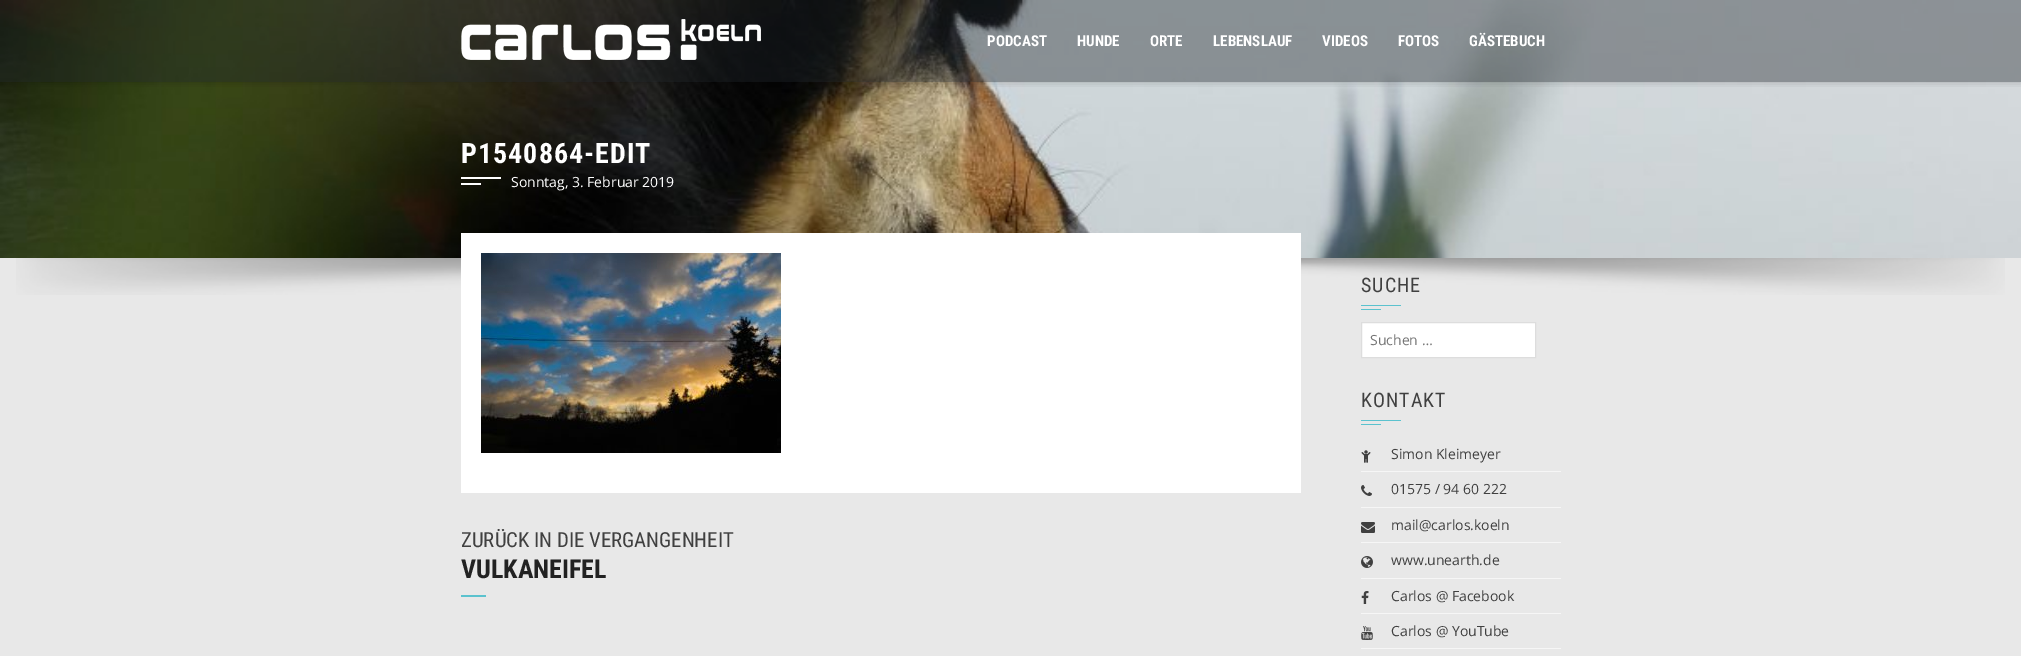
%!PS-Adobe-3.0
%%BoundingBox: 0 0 2021 656
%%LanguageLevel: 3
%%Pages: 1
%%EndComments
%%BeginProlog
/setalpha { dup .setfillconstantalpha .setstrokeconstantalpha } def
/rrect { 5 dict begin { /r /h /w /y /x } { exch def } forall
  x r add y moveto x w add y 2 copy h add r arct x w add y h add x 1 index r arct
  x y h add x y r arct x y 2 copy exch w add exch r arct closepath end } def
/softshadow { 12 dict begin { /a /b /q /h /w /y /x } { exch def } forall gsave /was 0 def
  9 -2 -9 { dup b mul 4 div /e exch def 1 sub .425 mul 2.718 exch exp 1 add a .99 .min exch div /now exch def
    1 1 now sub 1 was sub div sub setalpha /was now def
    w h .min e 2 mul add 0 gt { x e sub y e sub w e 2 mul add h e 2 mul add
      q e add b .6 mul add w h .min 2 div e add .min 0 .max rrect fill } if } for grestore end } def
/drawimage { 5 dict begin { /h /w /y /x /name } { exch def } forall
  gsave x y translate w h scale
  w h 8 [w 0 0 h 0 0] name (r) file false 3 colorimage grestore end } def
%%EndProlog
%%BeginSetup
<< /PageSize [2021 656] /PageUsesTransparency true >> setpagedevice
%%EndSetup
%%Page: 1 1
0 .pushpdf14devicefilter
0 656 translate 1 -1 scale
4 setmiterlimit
0.91 setgray
0 0 2021 656 rectfill
(images/2.raw) 0 0 2021 258 drawimage
gsave
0 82 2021 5 rectclip
0 setgray
0 0 2021 82 0 4 0.2 softshadow
grestore
0.4 setalpha
0.118 0.141 0.165 setrgbcolor
0 0 2021 82 rectfill
1 setalpha
(images/1.raw) 461 19 300 41 drawimage
1 setgray
461 177 40 2 rectfill
461 183 20 2 rectfill
(images/3.raw) 16 258 1989 37 drawimage
461 233 840 260 rectfill
(images/4.raw) 481 253 300 200 drawimage
0.357 0.761 0.808 setrgbcolor
461 595 25 2 rectfill
1361 305 40 1 rectfill
1361 309 20 1 rectfill
1 setgray
newpath 1361.5 322.5 moveto 1535.5 322.5 lineto 1535.5 357.5 lineto 1361.5 357.5 lineto closepath gsave fill grestore
0.867 setgray
stroke
0.357 0.761 0.808 setrgbcolor
1361 420 40 1 rectfill
1361 424 20 1 rectfill
0.965 setgray
1361 471 200 1 rectfill
(images/5.raw) 1361 450 10 13 drawimage
1361 507 200 1 rectfill
(images/6.raw) 1361 485 11 11 drawimage
1361 542 200 1 rectfill
(images/7.raw) 1361 522 14 11 drawimage
1361 578 200 1 rectfill
(images/8.raw) 1361 556 12 12 drawimage
1361 613 200 1 rectfill
(images/9.raw) 1361 591 8 13 drawimage
1361 648 200 1 rectfill
(images/10.raw) 1361 626 12 14 drawimage
/RobotoCondensed-Bold [15 0 0 -15 0 0] selectfont
1 setgray
987 46 moveto (PODCAST) show
1077 46 moveto (HUNDE) show
1150 46 moveto (ORTE) show
1213 46 moveto (LEBENSLAUF) show
1322 46 moveto (VIDEOS) show
1398 46 moveto (FOTOS) show
1469 46 moveto (GÄSTEBUCH) show
/RobotoCondensed-Bold [28 0 0 -28 0 0] selectfont
461 163 moveto 1 0 (P1540864-EDIT) ashow
/OpenSans-Regular [14 0 0 -14 0 0] selectfont
511 187 moveto (Sonntag, 3. Februar 2019) show
/RobotoCondensed-Regular [20.75 0 0 -20.75 0 0] selectfont
0.251 setgray
461 547 moveto (ZURÜCK IN DIE VERGANGENHEIT) show
/RobotoCondensed-Bold [26 0 0 -26 0 0] selectfont
0.133 setgray
461 578 moveto (VULKANEIFEL) show
/RobotoCondensed-Regular [20 0 0 -20 0 0] selectfont
0.251 setgray
1361 292 moveto 1 0 (SUCHE) ashow
/OpenSans-Regular [14 0 0 -14 0 0] selectfont
0.459 setgray
1370 345 moveto (Suchen …) show
/RobotoCondensed-Regular [20 0 0 -20 0 0] selectfont
0.251 setgray
1361 407 moveto 1 0 (KONTAKT) ashow
/OpenSans-Regular [14 0 0 -14 0 0] selectfont
1391 459 moveto (Simon Kleimeyer) show
1391 494 moveto (01575 / 94 60 222) show
1391 530 moveto (mail@carlos.koeln) show
1391 565 moveto (www.unearth.de) show
1391 601 moveto (Carlos @ Facebook) show
1391 636 moveto (Carlos @ YouTube) show
.poppdf14devicefilter showpage
%%EOF
